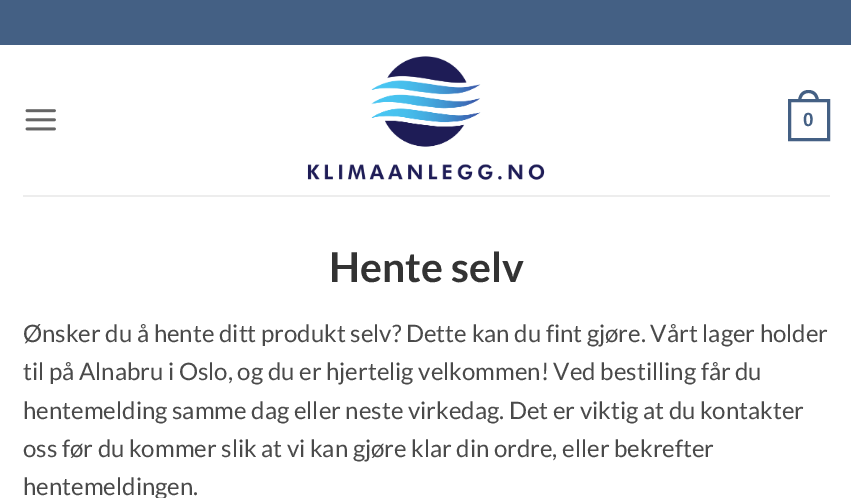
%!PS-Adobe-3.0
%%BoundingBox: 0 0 851 498
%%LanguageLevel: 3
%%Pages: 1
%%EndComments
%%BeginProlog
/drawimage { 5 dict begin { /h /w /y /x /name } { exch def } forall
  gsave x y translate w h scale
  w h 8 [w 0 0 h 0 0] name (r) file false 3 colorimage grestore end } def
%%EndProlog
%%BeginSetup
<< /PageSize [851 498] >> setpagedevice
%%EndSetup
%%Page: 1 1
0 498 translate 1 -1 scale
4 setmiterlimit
1 setgray
0 0 851 498 rectfill
0.267 0.376 0.518 setrgbcolor
0 0 851 45 rectfill
(images/1.raw) 25 109 31 22 drawimage
(images/2.raw) 307 56 238 124 drawimage
3 setlinewidth
789.5 100.5 39 39 rectstroke
newpath 808.5 90 moveto 815.5 90 819 95.5 819 102 curveto 798 102 lineto 798 95.5 801.5 90 808.5 90 curveto closepath 808.5 93 moveto 814 93 816 97.5 816 102 curveto 801 102 lineto 801 97.5 803 93 808.5 93 curveto closepath eofill
0.929 setgray
23 195 807 2 rectfill
/LiberationSans-Bold [19 0 0 -19 0 0] selectfont
0.267 0.376 0.518 setrgbcolor
803 126 moveto (0) show
/Lato-Bold [41 0 0 -41 0 0] selectfont
0.2 setgray
329 282 moveto (Hente selv) show
/Lato-Regular [24 0 0 -24 0 0] selectfont
0.29 setgray
23 342 moveto (Ønsker du å hente ditt produkt selv? Dette kan du fint gjøre. Vårt lager holder) show
23 380 moveto (til på Alnabru i Oslo, og du er hjertelig velkommen! Ved bestilling får du) show
23 419 moveto (hentemelding samme dag eller neste virkedag. Det er viktig at du kontakter) show
23 457 moveto (oss før du kommer slik at vi kan gjøre klar din ordre, eller bekrefter) show
23 495 moveto (hentemeldingen.) show
showpage
%%EOF
